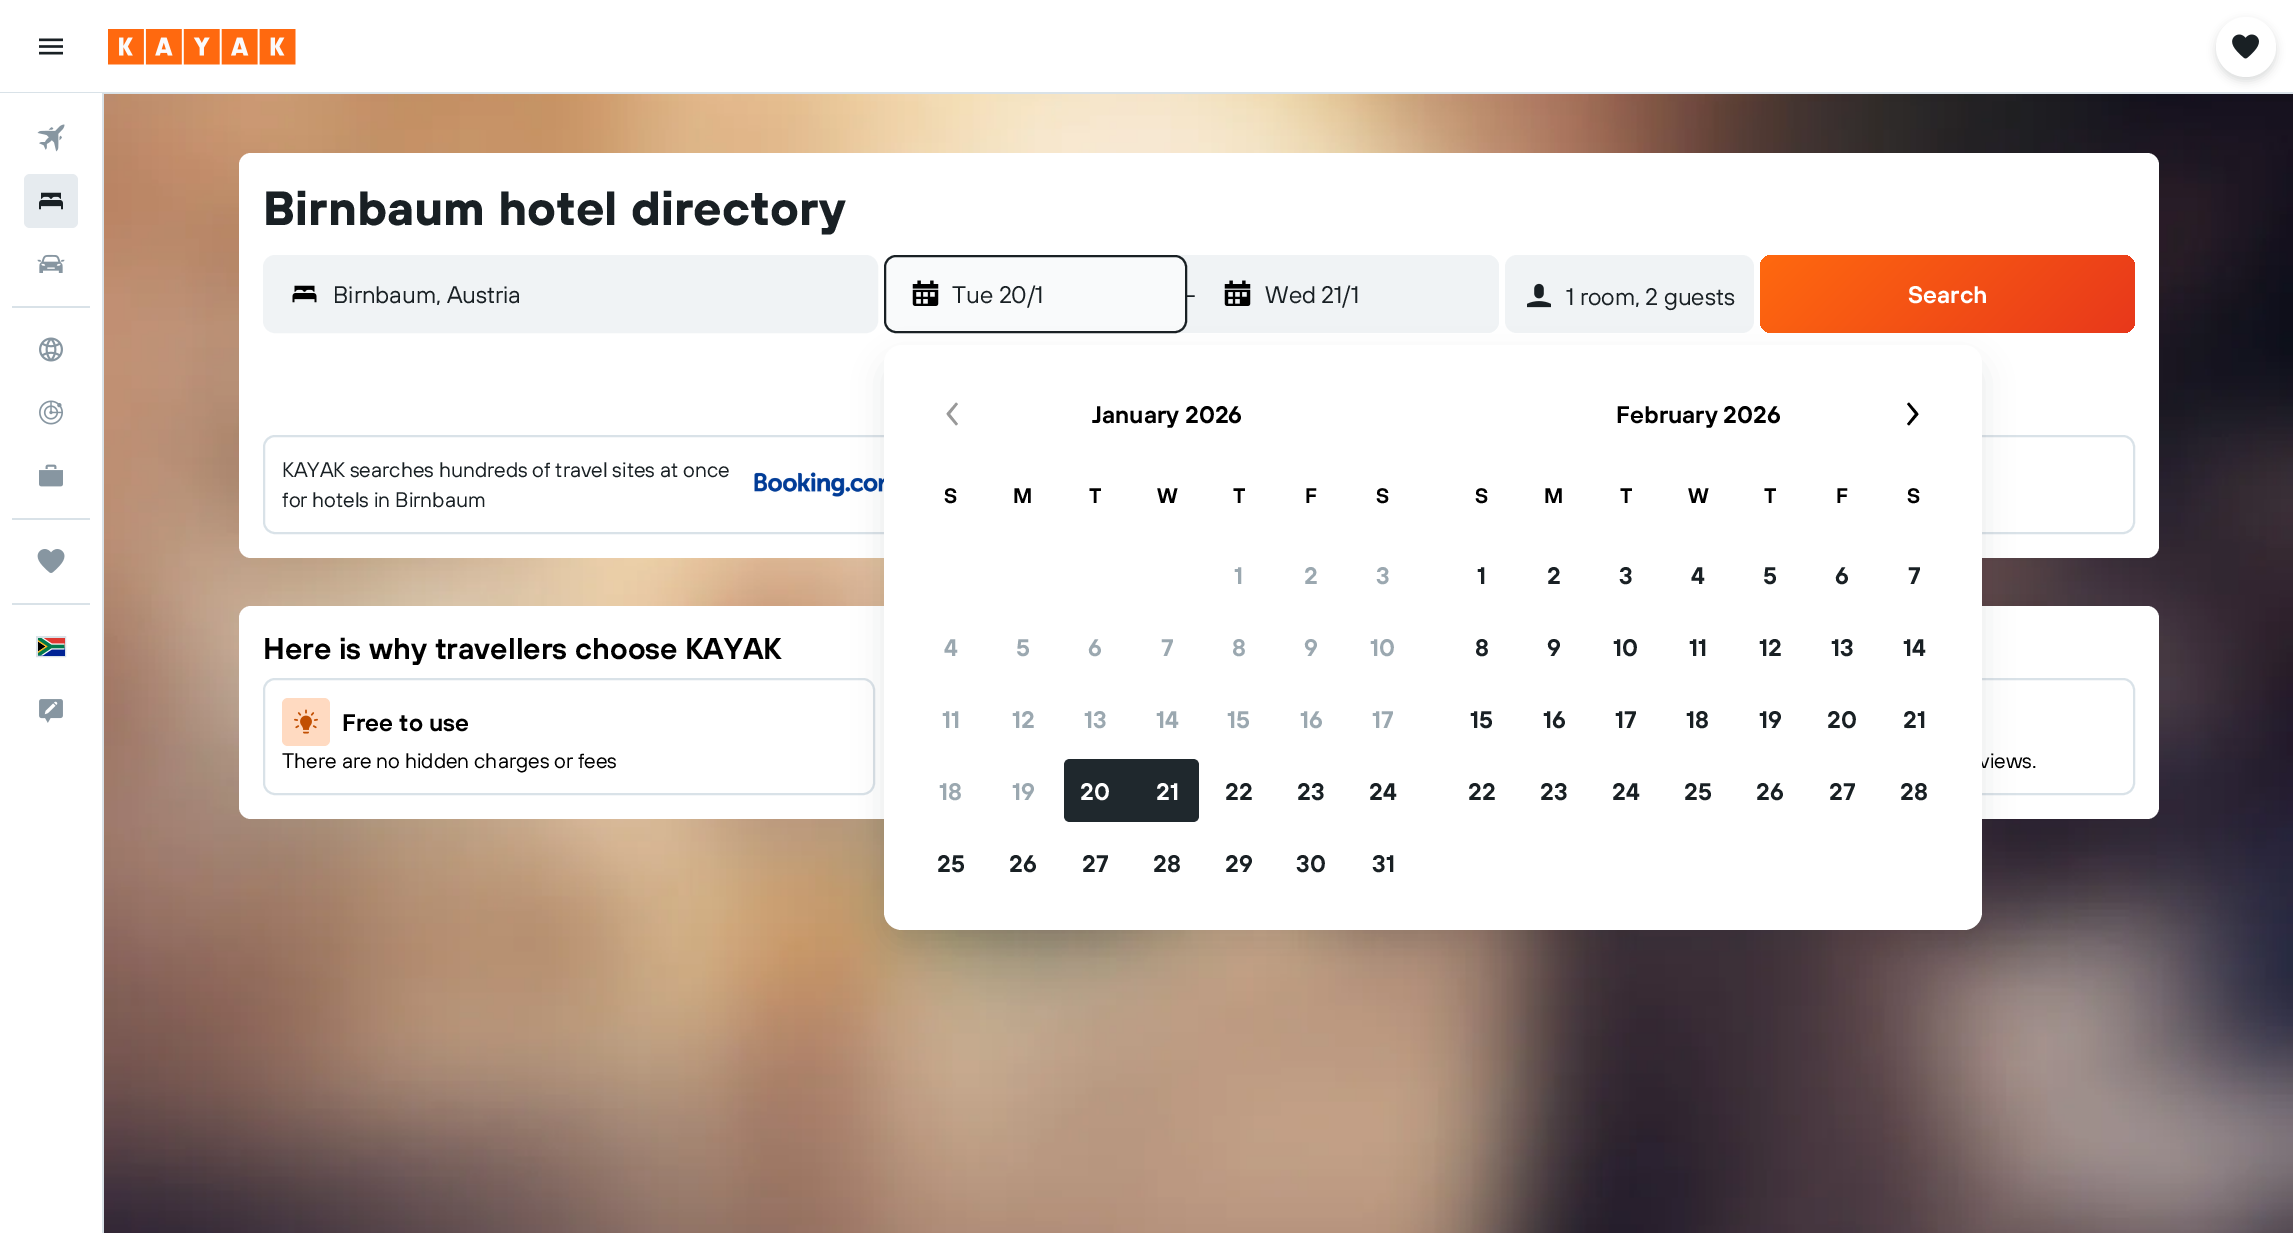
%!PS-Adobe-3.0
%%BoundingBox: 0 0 2293 1233
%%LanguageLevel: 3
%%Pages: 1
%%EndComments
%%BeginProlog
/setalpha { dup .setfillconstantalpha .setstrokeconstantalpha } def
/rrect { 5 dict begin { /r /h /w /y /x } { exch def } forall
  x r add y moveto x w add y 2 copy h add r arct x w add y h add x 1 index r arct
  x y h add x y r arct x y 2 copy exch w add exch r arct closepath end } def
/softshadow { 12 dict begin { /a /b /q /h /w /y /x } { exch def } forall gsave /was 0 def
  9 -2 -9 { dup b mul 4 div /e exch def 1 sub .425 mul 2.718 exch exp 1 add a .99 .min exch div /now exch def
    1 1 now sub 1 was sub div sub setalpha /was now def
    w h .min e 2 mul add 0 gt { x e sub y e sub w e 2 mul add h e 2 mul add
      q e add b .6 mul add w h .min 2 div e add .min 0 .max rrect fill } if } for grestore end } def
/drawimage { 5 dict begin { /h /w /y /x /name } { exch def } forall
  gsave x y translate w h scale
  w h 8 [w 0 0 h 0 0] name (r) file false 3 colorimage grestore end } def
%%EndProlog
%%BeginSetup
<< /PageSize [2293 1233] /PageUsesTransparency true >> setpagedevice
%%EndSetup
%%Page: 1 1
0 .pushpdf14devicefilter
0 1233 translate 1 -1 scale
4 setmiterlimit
1 setgray
0 0 2293 1233 rectfill
0.851 0.886 0.91 setrgbcolor
0 92 2293 2 rectfill
(images/1.raw) 39 38 24 17 drawimage
(images/2.raw) 108 29 188 36 drawimage
(images/13.raw) 104 94 2189 1139 drawimage
0.098 0.125 0.141 setrgbcolor
2216 21 60 60 30 4.5 0.16 softshadow
1 setgray
newpath 2246 47 30 0 360 arc closepath fill
(images/3.raw) 2232 34 27 25 drawimage
0 93 102 1 rectfill
0.851 0.886 0.91 setrgbcolor
102 93 2 1140 rectfill
(images/4.raw) 37 124 28 28 drawimage
0.902 0.922 0.937 setrgbcolor
24 174 54 54 6 rrect fill
(images/5.raw) 39 192 24 18 drawimage
(images/6.raw) 37 254 28 19 drawimage
0.851 0.886 0.91 setrgbcolor
12 306 78 2 rectfill
(images/7.raw) 39 337 24 25 drawimage
(images/8.raw) 39 400 24 25 drawimage
(images/9.raw) 39 464 24 23 drawimage
12 518 78 2 rectfill
(images/10.raw) 37 549 28 24 drawimage
12 603 78 2 rectfill
2 setlinewidth
37 637 28 19 rectstroke
(images/11.raw) 38 638 27 18 drawimage
(images/12.raw) 39 699 24 24 drawimage
1 setgray
239 153 1920 405 12 rrect fill
0.941 0.953 0.961 setrgbcolor
264 256 613 76 11 rrect gsave fill grestore
stroke
(images/14.raw) 292 285 25 18 drawimage
884 255 615 78 12 rrect fill
1196 255 303 78 12 rrect fill
(images/16.raw) 1224 280 27 26 drawimage
1505 255 249 78 12 rrect fill
(images/17.raw) 1527 283 24 25 drawimage
gsave 1760 255 375 78 12 rrect clip newpath
<< /ShadingType 2 /ColorSpace /DeviceRGB /Coords [1834 181 2060 407] /Extend [true true] /Function << /FunctionType 2 /Domain [0 1] /C0 [1 0.412 0.059] /C1 [0.91 0.22 0.106] /N 1 >> >> shfill grestore
0.851 0.886 0.91 setrgbcolor
264 436 1870 97 11 rrect stroke
(images/18.raw) 754 472 130 25 drawimage
1 setgray
239 606 1920 213 12 rrect fill
0.851 0.886 0.91 setrgbcolor
264 679 610 115 11 rrect stroke
1 0.855 0.757 setrgbcolor
282 698 48 48 6 rrect fill
(images/19.raw) 294 709 24 25 drawimage
0.851 0.886 0.91 setrgbcolor
1524 679 610 115 11 rrect stroke
/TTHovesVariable-Bold [48 0 0 -48 0 0] selectfont
0.098 0.125 0.141 setrgbcolor
263 225 moveto (Birnbaum hotel directory) show
/TTHovesVariable-Regular [24 0 0 -24 0 0] selectfont
333 303 moveto (Birnbaum, Austria) show
1186 303 moveto (-) show
0.976 0.98 0.984 setrgbcolor
885 256 301 76 11 rrect gsave fill grestore
0.098 0.125 0.141 setrgbcolor
stroke
952 303 moveto (Tue 20/1) show
(images/15.raw) 912 280 27 26 drawimage
1265 303 moveto (Wed 21/1) show
1566 305 moveto (1 room, 2 guests) show
/TTHovesVariable-SemiBold [24 0 0 -24 0 0] selectfont
1 setgray
1908 303 moveto (Search) show
/TTHovesVariable-Regular [21 0 0 -21 0 0] selectfont
0.098 0.125 0.141 setrgbcolor
282 477 moveto (KAYAK searches hundreds of travel sites at once) show
282 507 moveto (for hotels in Birnbaum) show
/TTHovesVariable-SemiBold [30 0 0 -30 0 0] selectfont
0 setgray
263 659 moveto (Here is why travellers choose KAYAK) show
/TTHovesVariable-SemiBold [24 0 0 -24 0 0] selectfont
342 731 moveto (Free to use) show
/TTHovesVariable-Regular [21 0 0 -21 0 0] selectfont
282 768 moveto (There are no hidden charges or fees) show
1979 768 moveto (views.) show
0.098 0.125 0.141 setrgbcolor
884 360 1098 585 18 15 0.1 softshadow
1 setgray
884 345 1098 585 18 rrect fill
0.6 setgray
newpath 956 425.5 moveto 946.5 414 946 414.5 947 413 curveto 956 402.5 lineto 958 404 lineto 950 414 lineto 958 424 lineto closepath fill
0 setgray
newpath 1909 425.5 moveto 1907 424 lineto 1915 414 lineto 1907 404 lineto 1909 402.5 lineto 1918.5 414 1919 413.5 1918 415 curveto closepath fill
/TTHovesVariable-SemiBold [24 0 0 -24 0 0] selectfont
1092 423 moveto (January 2026) show
/TTHovesVariable-SemiBold [21 0 0 -21 0 0] selectfont
944 503 moveto (S) show
1013 503 moveto (M) show
1089 503 moveto (T) show
1157 503 moveto (W) show
1233 503 moveto (T) show
1305 503 moveto (F) show
1376 503 moveto (S) show
/TTHovesVariable-SemiBold [24 0 0 -24 0 0] selectfont
0.608 0.659 0.69 setrgbcolor
1234 584 moveto (1) show
1304 584 moveto (2) show
1376 584 moveto (3) show
944 656 moveto (4) show
1016 656 moveto (5) show
1088 656 moveto (6) show
1161 656 moveto (7) show
1232 656 moveto (8) show
1304 656 moveto (9) show
1370 656 moveto (10) show
942 728 moveto (11) show
1012 728 moveto (12) show
1084 728 moveto (13) show
1156 728 moveto (14) show
1227 728 moveto (15) show
1300 728 moveto (16) show
1372 728 moveto (17) show
939 800 moveto (18) show
1012 800 moveto (19) show
0.122 0.157 0.176 setrgbcolor
newpath 1070 759 moveto 1131 759 lineto 1131 822 lineto 1070 822 lineto 1066.5 822 1064 819.5 1064 816 curveto 1064 765 lineto 1064 761.5 1066.5 759 1070 759 curveto closepath fill
1 setgray
1080 800 moveto (20) show
0.122 0.157 0.176 setrgbcolor
newpath 1131 759 moveto 1193 759 lineto 1196.5 759 1199 761.5 1199 765 curveto 1199 816 lineto 1199 819.5 1196.5 822 1193 822 curveto 1131 822 lineto closepath fill
1 setgray
1156 800 moveto (21) show
0.098 0.125 0.141 setrgbcolor
1225 800 moveto (22) show
1297 800 moveto (23) show
1369 800 moveto (24) show
937 872 moveto (25) show
1009 872 moveto (26) show
1082 872 moveto (27) show
1153 872 moveto (28) show
1225 872 moveto (29) show
1296 872 moveto (30) show
1372 872 moveto (31) show
0 setgray
1616 423 moveto (February 2026) show
/TTHovesVariable-SemiBold [21 0 0 -21 0 0] selectfont
1475 503 moveto (S) show
1544 503 moveto (M) show
1620 503 moveto (T) show
1688 503 moveto (W) show
1764 503 moveto (T) show
1836 503 moveto (F) show
1907 503 moveto (S) show
/TTHovesVariable-SemiBold [24 0 0 -24 0 0] selectfont
0.098 0.125 0.141 setrgbcolor
1477 584 moveto (1) show
1547 584 moveto (2) show
1619 584 moveto (3) show
1691 584 moveto (4) show
1763 584 moveto (5) show
1835 584 moveto (6) show
1908 584 moveto (7) show
1475 656 moveto (8) show
1547 656 moveto (9) show
1613 656 moveto (10) show
1689 656 moveto (11) show
1759 656 moveto (12) show
1831 656 moveto (13) show
1903 656 moveto (14) show
1470 728 moveto (15) show
1543 728 moveto (16) show
1615 728 moveto (17) show
1686 728 moveto (18) show
1759 728 moveto (19) show
1827 728 moveto (20) show
1903 728 moveto (21) show
1468 800 moveto (22) show
1540 800 moveto (23) show
1612 800 moveto (24) show
1684 800 moveto (25) show
1756 800 moveto (26) show
1829 800 moveto (27) show
1900 800 moveto (28) show
.poppdf14devicefilter showpage
%%EOF
